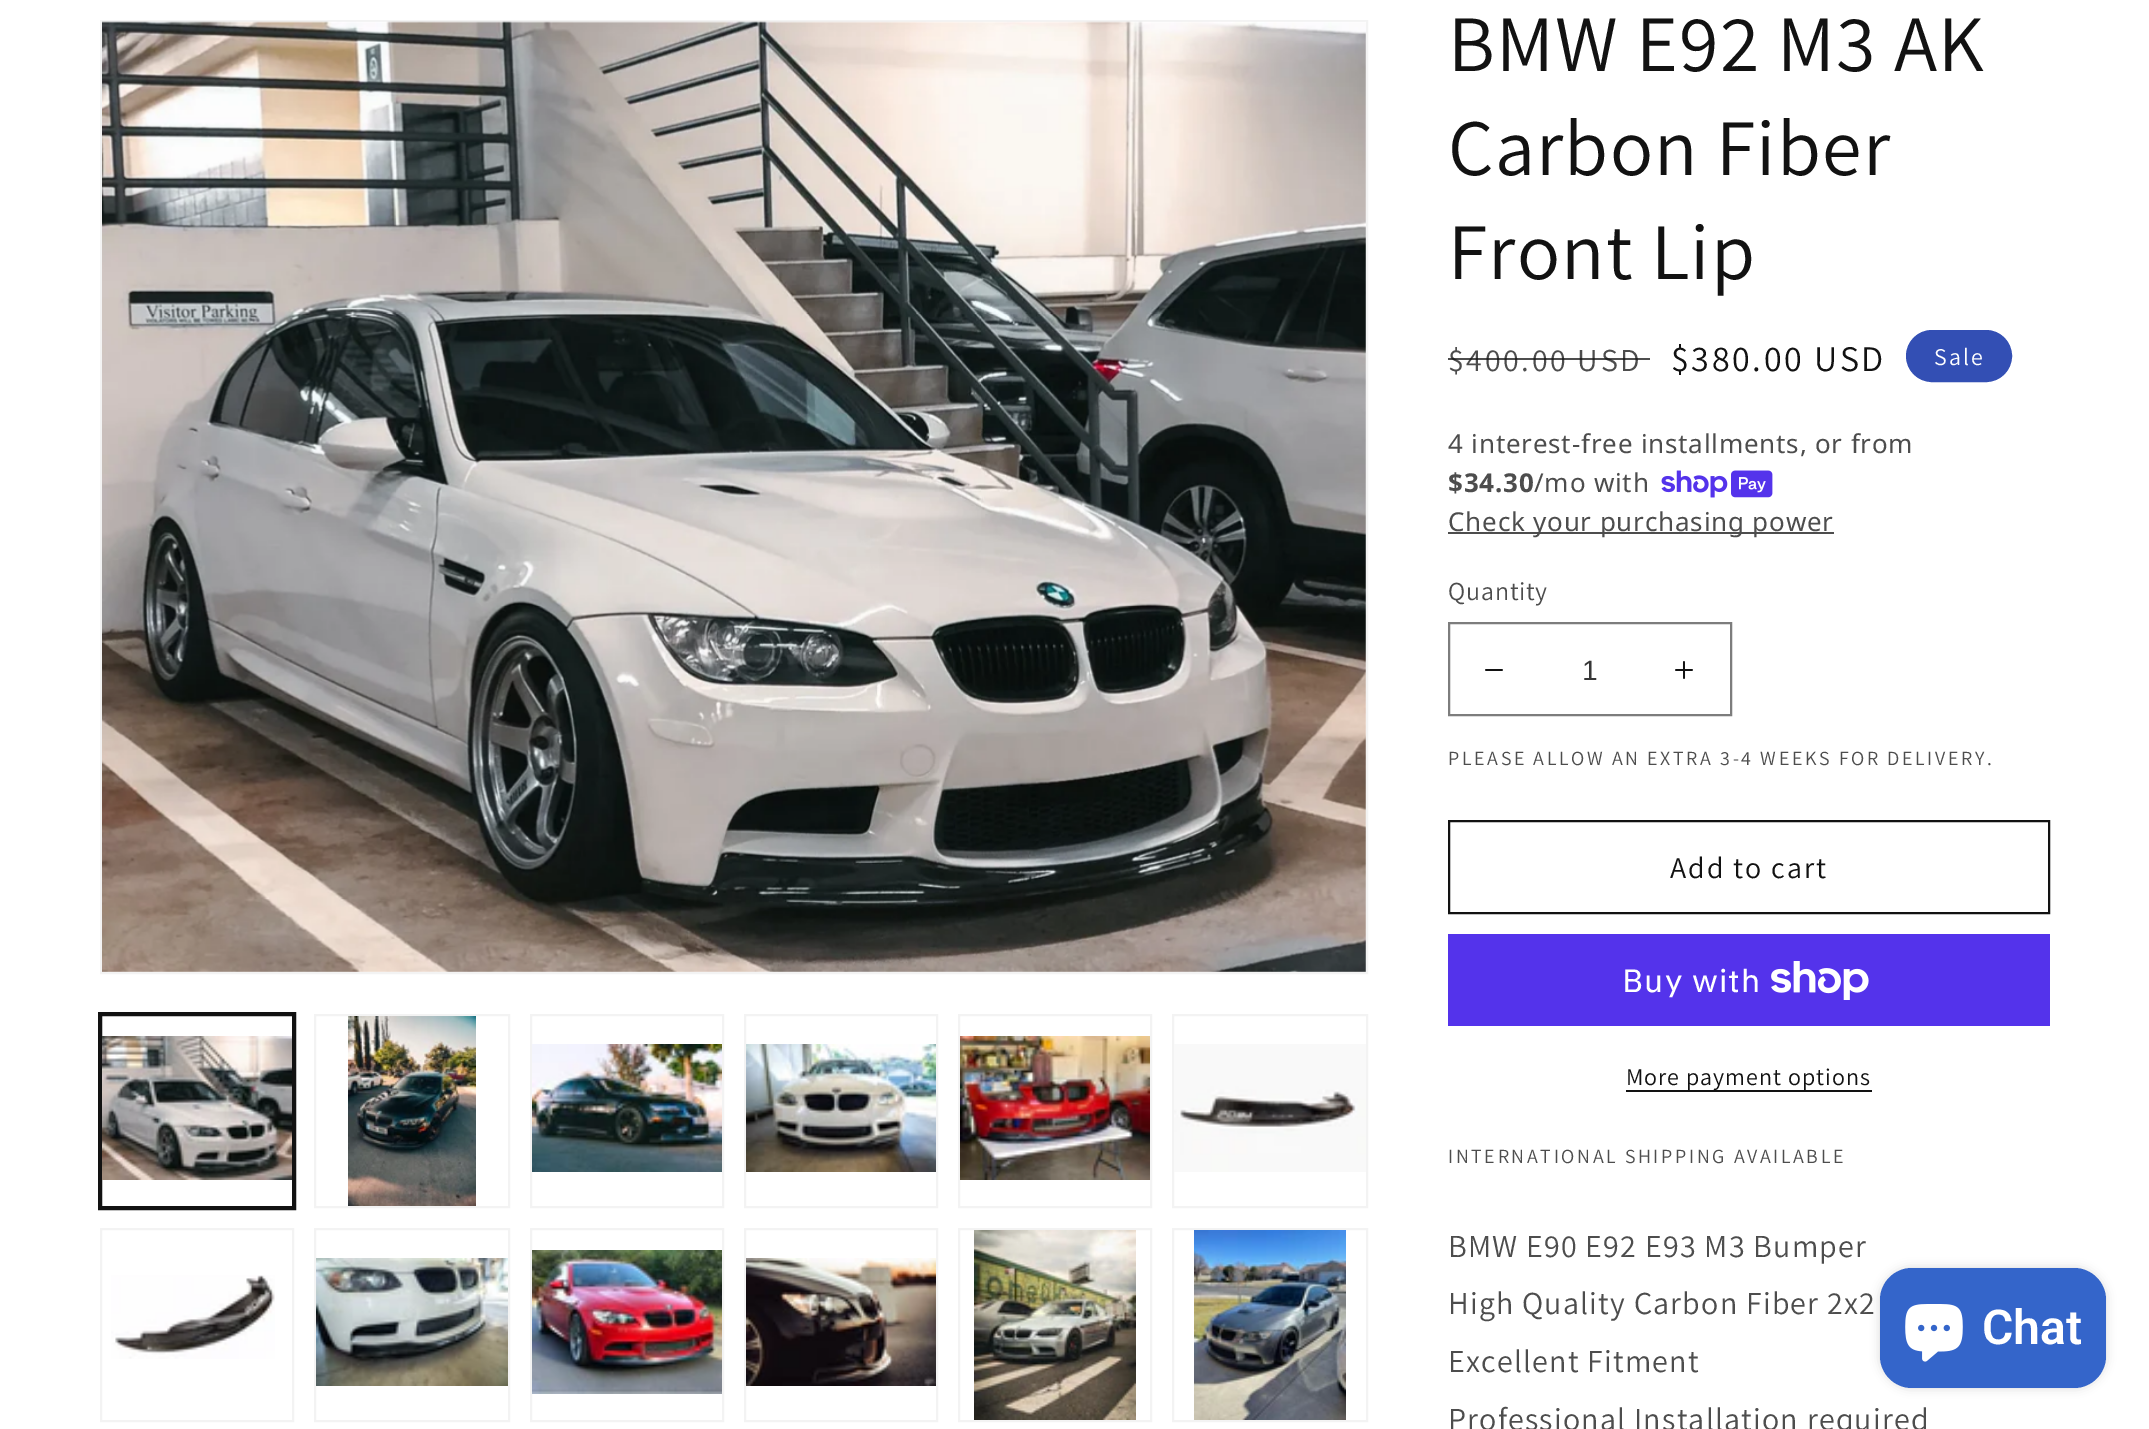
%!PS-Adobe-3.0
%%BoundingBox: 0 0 2149 1429
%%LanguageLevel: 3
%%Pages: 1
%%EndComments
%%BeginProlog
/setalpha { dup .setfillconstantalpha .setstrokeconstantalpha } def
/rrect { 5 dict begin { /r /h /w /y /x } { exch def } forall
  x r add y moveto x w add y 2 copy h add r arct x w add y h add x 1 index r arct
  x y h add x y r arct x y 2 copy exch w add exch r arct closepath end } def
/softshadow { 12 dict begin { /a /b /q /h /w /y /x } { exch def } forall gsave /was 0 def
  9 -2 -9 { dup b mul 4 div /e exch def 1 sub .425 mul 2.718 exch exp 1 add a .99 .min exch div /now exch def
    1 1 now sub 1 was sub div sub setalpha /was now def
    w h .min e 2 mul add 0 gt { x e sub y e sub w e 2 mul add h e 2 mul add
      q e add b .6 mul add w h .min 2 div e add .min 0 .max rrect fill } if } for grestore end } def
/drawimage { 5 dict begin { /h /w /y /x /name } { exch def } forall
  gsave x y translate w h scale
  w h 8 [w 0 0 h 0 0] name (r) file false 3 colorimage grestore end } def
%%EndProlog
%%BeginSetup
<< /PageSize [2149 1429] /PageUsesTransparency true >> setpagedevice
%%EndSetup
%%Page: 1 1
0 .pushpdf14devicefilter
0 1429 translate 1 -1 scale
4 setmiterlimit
1 setgray
0 0 2149 1429 rectfill
0.953 setgray
2 setlinewidth
101 21 1266 952 rectstroke
(images/1.raw) 102 21 1264 951 drawimage
0.071 setgray
99 1013 196 196 rectstroke
101 1015 192 192 rectstroke
(images/2.raw) 102 1036 190 144 drawimage
0.953 setgray
315 1015 194 192 rectstroke
(images/3.raw) 348 1016 128 190 drawimage
531 1015 192 192 rectstroke
(images/4.raw) 532 1044 190 128 drawimage
745 1015 192 192 rectstroke
(images/5.raw) 746 1044 190 128 drawimage
959 1015 192 192 rectstroke
(images/6.raw) 960 1036 190 144 drawimage
1173 1015 194 192 rectstroke
(images/7.raw) 1174 1044 192 128 drawimage
101 1229 192 192 rectstroke
(images/8.raw) 111 1275 164 84 drawimage
315 1229 194 192 rectstroke
(images/9.raw) 316 1258 192 128 drawimage
531 1229 192 192 rectstroke
(images/10.raw) 532 1250 190 144 drawimage
745 1229 192 192 rectstroke
(images/11.raw) 746 1258 190 128 drawimage
959 1229 192 192 rectstroke
(images/12.raw) 974 1230 162 190 drawimage
1173 1229 194 192 rectstroke
(images/13.raw) 1194 1230 152 190 drawimage
0.2 0.31 0.706 setrgbcolor
1907 331 104 50 25 rrect gsave fill grestore
stroke
(images/14.raw) 1661 470 112 28 drawimage
0.302 setgray
1448 532 386 2 rectfill
(images/15.raw) 1485 669 18 2 drawimage
(images/16.raw) 1675 661 18 18 drawimage
0.49 setgray
1449 623 282 92 rectstroke
0.071 setgray
1449 821 600 92 rectstroke
0.329 0.2 0.922 setrgbcolor
1448 934 602 92 rectfill
(images/17.raw) 1771 961 98 39 drawimage
0.071 setgray
1626 1090 246 2 rectfill
0 setgray
1880 1268 226 120 32 5 0.15 softshadow
0.204 0.396 0.792 setrgbcolor
1880 1268 226 120 32 rrect fill
(images/18.raw) 1905 1304 58 58 drawimage
/Assistant-Regular [80 0 0 -80 0 0] selectfont
0.071 setgray
1448 71 moveto 1.2 0 (BMW E92 M3 AK) ashow
1448 175 moveto 1.2 0 (Carbon Fiber) ashow
1448 279 moveto 1.2 0 (Front Lip) ashow
/Assistant-Regular [32 0 0 -32 0 0] selectfont
0.302 setgray
1448 371 moveto 2.6 0 ($400.00 USD) ashow
0.75 setalpha
0.071 setgray
1448 358 202 2 rectfill
/Assistant-Regular [36 0 0 -36 0 0] selectfont
1 setalpha
1671 371 moveto 2.6 0 ($380.00 USD) ashow
/Assistant-Regular [24 0 0 -24 0 0] selectfont
1 setgray
1934 365 moveto 2 0 (Sale) ashow
/NotoSans-Regular [26 0 0 -26 0 0] selectfont
0.302 setgray
1448 453 moveto 0.8 0 (4 interest-free installments, or from) ashow
/NotoSans-Bold [26 0 0 -26 0 0] selectfont
1448 492 moveto 0.8 0 ($34.30) ashow
/NotoSans-Regular [26 0 0 -26 0 0] selectfont
1534 492 moveto 0.8 0 (/mo with) ashow
1448 531 moveto 0.8 0 (Check your purchasing power) ashow
/Assistant-Regular [26 0 0 -26 0 0] selectfont
1448 600 moveto 0.8 0 (Quantity) ashow
/LiberationSans-Regular [28 0 0 -28 0 0] selectfont
0.212 setgray
1582 680 moveto (1) show
/Assistant-Regular [20 0 0 -20 0 0] selectfont
0.302 setgray
1448 765 moveto 2.6 0 (PLEASE ALLOW AN EXTRA 3-4 WEEKS FOR DELIVERY.) ashow
/Assistant-Regular [30 0 0 -30 0 0] selectfont
0.071 setgray
1670 878 moveto 2 0 (Add to cart) ashow
/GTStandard-Regular [32 0 0 -32 0 0] selectfont
1 setgray
1622 992 moveto 1.2 0 (Buy with) ashow
/Assistant-Regular [24 0 0 -24 0 0] selectfont
0.071 setgray
1626 1085 moveto 1 0 (More payment options) ashow
/Assistant-Regular [20 0 0 -20 0 0] selectfont
0.302 setgray
1448 1163 moveto 2.6 0 (INTERNATIONAL SHIPPING AVAILABLE) ashow
/Assistant-Regular [32 0 0 -32 0 0] selectfont
1448 1257 moveto 1.2 0 (BMW E90 E92 E93 M3 Bumper) ashow
1448 1314 moveto 1.2 0 (High Quality Carbon Fiber 2x2) ashow
1448 1372 moveto 1.2 0 (Excellent Fitment) ashow
1448 1430 moveto 1.2 0 (Professional Installation required) ashow
/Roboto-SemiBold [48 0 0 -48 0 0] selectfont
1 setgray
1982 1344 moveto (Chat) show
.poppdf14devicefilter showpage
%%EOF
